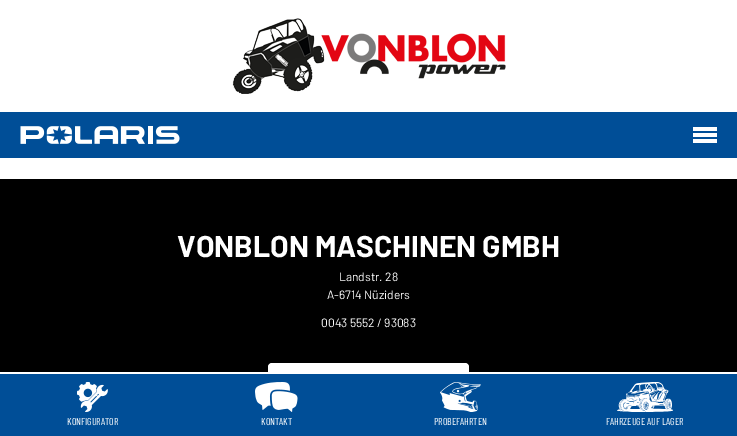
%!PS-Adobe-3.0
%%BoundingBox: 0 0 737 436
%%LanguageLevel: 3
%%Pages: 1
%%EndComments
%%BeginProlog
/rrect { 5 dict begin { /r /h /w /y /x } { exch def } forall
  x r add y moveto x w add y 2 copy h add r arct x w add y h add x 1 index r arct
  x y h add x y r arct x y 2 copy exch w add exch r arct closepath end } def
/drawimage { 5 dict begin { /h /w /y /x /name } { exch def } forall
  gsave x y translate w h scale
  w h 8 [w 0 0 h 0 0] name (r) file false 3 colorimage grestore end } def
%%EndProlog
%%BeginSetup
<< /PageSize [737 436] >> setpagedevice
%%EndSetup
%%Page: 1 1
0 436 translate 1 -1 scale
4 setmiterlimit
1 setgray
0 0 737 436 rectfill
(images/1.raw) 232 18 274 76 drawimage
0 0.306 0.592 setrgbcolor
0 112 737 46 rectfill
(images/2.raw) 20 126 160 18 drawimage
1 setgray
693 127 24 4 rectfill
693 133 24 4 rectfill
693 139 24 4 rectfill
0 setgray
0 179 737 193 rectfill
1 setgray
268 363 201 40 4 rrect fill
0 0.306 0.592 setrgbcolor
0 374 737 62 rectfill
(images/3.raw) 77 382 31 30 drawimage
(images/4.raw) 255 382 43 30 drawimage
(images/5.raw) 440 382 41 30 drawimage
(images/6.raw) 617 382 56 30 drawimage
/Barlow-Bold [30 0 0 -30 0 0] selectfont
1 setgray
177 257 moveto (VONBLON MASCHINEN GMBH) show
/Barlow-Regular [12 0 0 -12 0 0] selectfont
339 281 moveto (Landstr. 28) show
327 299 moveto (A-6714 Nüziders) show
321 327 moveto (0043 5552 / 93083) show
/BarlowCondensed-Regular [10 0 0 -10 0 0] selectfont
67 425 moveto (KONFIGURATOR) show
261 425 moveto (KONTAKT) show
434 425 moveto (PROBEFAHRTEN) show
606 425 moveto (FAHRZEUGE AUF LAGER) show
showpage
%%EOF
